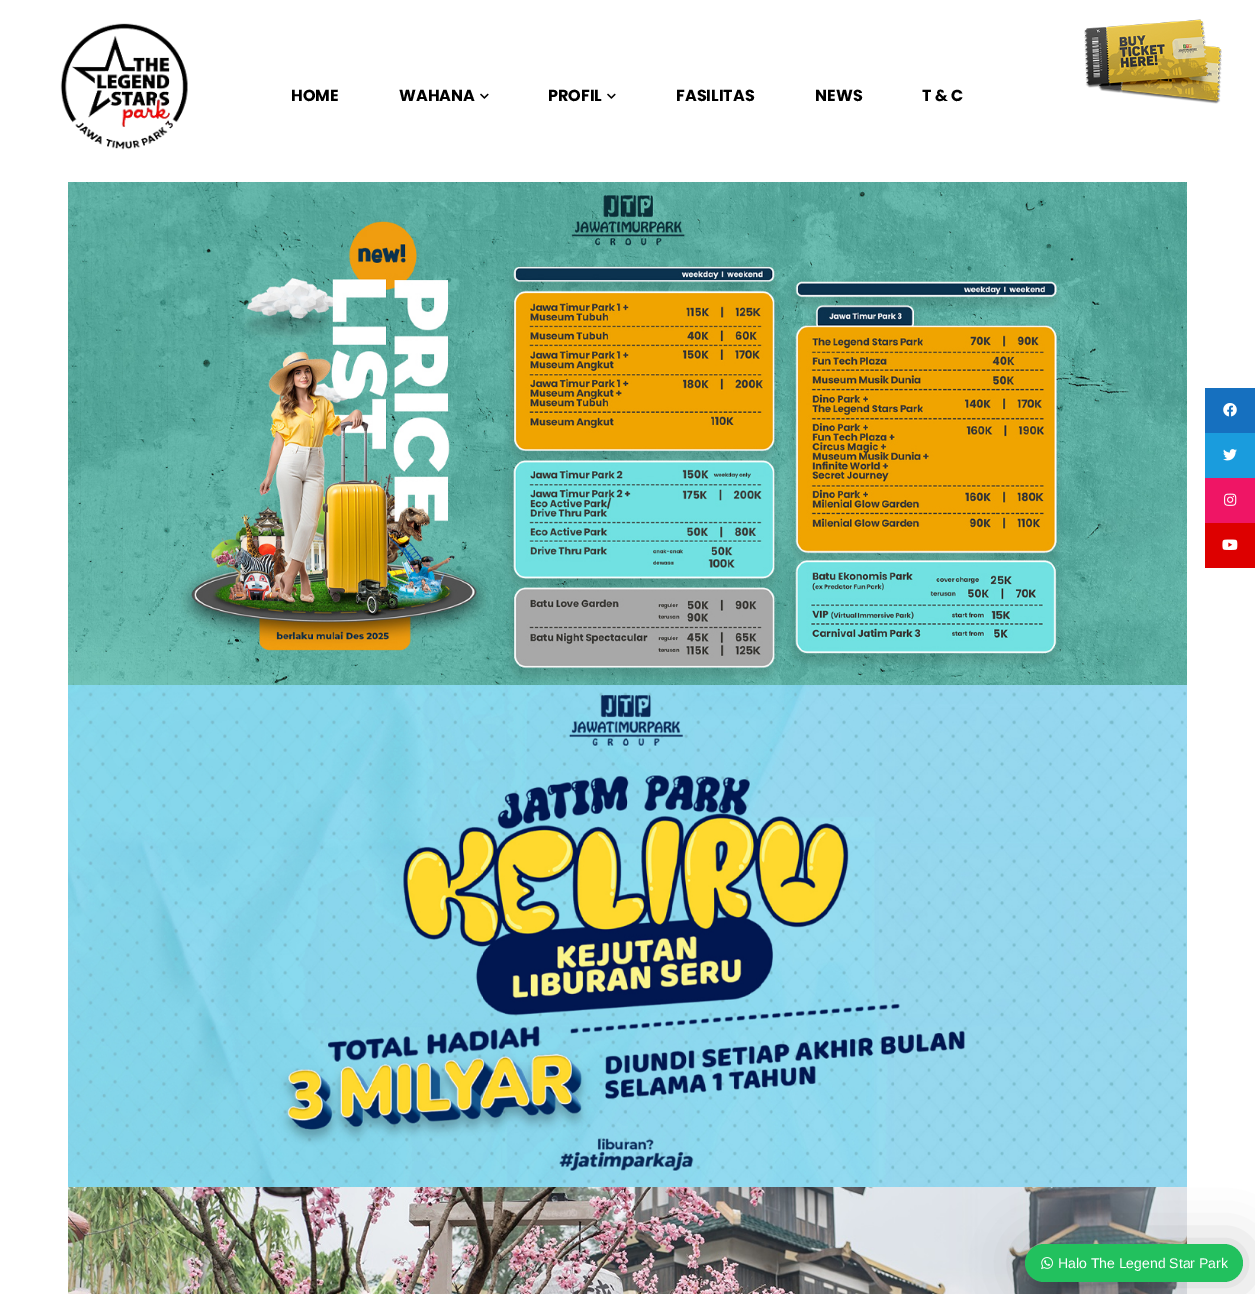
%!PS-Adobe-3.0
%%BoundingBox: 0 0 1255 1294
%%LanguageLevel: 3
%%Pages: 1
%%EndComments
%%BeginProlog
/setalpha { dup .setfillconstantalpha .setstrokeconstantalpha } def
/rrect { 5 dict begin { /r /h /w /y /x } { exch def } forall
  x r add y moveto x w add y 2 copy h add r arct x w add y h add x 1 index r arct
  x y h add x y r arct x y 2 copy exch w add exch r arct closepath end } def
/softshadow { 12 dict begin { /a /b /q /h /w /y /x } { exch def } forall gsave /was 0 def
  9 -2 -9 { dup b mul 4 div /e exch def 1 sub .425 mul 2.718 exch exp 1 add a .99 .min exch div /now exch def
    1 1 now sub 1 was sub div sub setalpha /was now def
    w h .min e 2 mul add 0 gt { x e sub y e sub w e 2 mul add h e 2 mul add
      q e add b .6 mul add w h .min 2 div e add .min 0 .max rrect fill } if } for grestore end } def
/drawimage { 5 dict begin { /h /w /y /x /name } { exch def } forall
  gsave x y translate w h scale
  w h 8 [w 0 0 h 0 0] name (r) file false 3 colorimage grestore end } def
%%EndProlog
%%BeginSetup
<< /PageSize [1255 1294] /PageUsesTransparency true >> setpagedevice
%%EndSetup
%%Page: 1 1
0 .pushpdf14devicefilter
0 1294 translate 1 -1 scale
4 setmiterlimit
1 setgray
0 0 1255 1294 rectfill
(images/1.raw) 60 23 128 127 drawimage
(images/2.raw) 480 93 9 6 drawimage
(images/2.raw) 607 93 9 6 drawimage
(images/3.raw) 1084 19 138 85 drawimage
(images/4.raw) 68 182 1119 503 drawimage
(images/5.raw) 68 685 1119 502 drawimage
(images/6.raw) 68 1187 1119 107 drawimage
0.086 0.439 0.749 setrgbcolor
1205 388 50 45 rectfill
(images/7.raw) 1223 403 14 14 drawimage
0.102 0.612 0.867 setrgbcolor
1205 433 50 45 rectfill
(images/8.raw) 1223 449 14 12 drawimage
0.937 0.082 0.396 setrgbcolor
1205 478 50 45 rectfill
(images/9.raw) 1224 493 13 13 drawimage
0.867 0 0 setrgbcolor
1205 523 50 45 rectfill
(images/10.raw) 1222 539 16 11 drawimage
0 setgray
1025 1244 218 38 19 25 0.2 softshadow
0.133 0.757 0.369 setrgbcolor
1025 1244 218 38 19 rrect fill
(images/11.raw) 1041 1257 12 13 drawimage
/Poppins-Bold [16 0 0 -16 0 0] selectfont
0 setgray
291 101 moveto (HOME) show
399 101 moveto (WAHANA) show
548 101 moveto (PROFIL) show
676 101 moveto (FASILITAS) show
815 101 moveto (NEWS) show
922 101 moveto (T & C) show
/LiberationSans-Regular [14 0 0 -14 0 0] selectfont
1 setgray
1058 1268 moveto (Halo The Legend Star Park) show
.poppdf14devicefilter showpage
%%EOF
